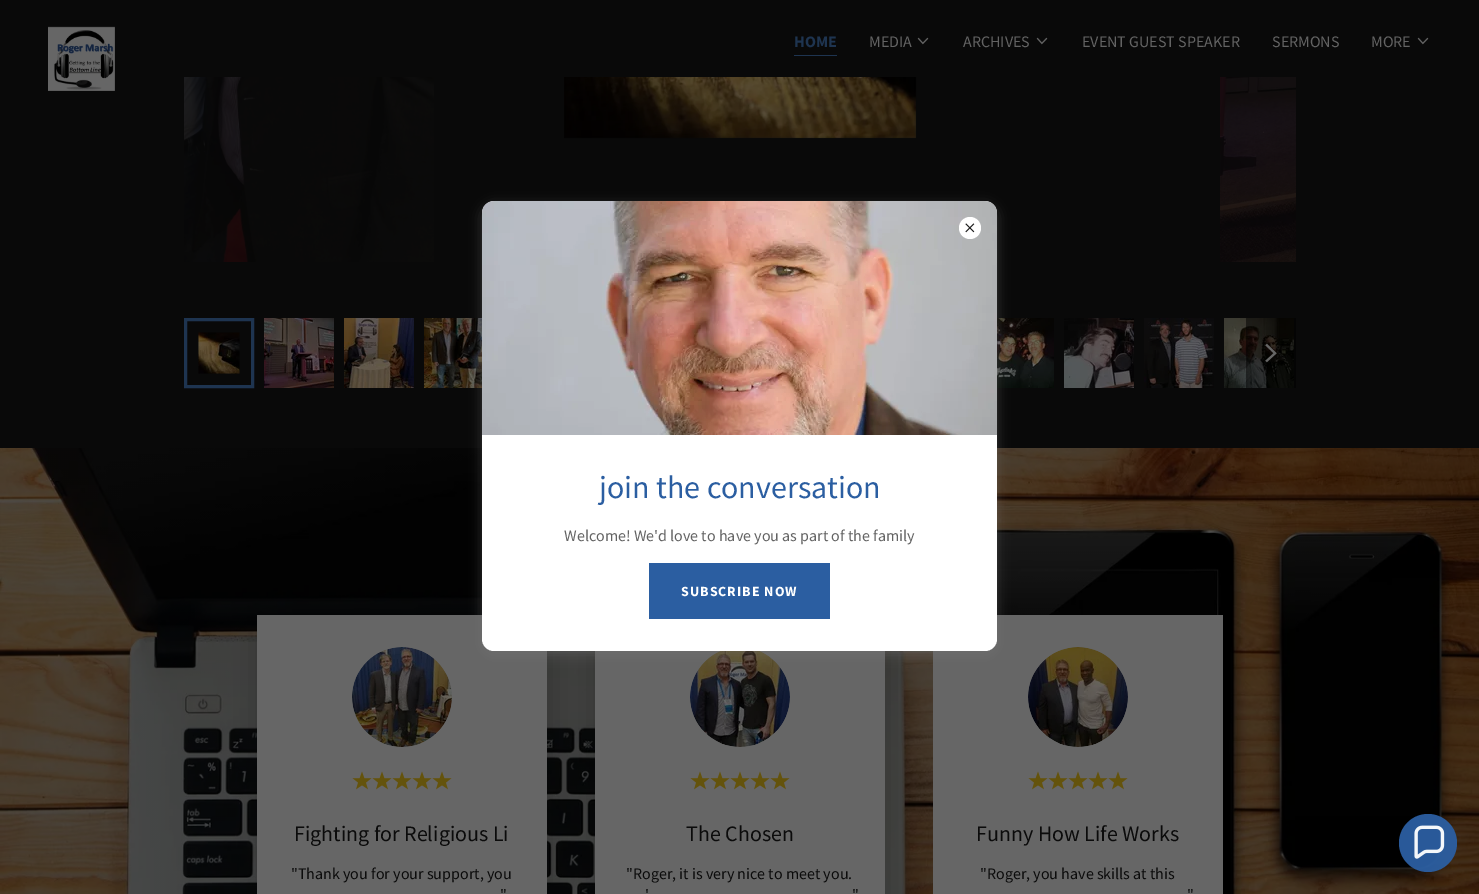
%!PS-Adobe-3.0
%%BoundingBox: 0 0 1479 894
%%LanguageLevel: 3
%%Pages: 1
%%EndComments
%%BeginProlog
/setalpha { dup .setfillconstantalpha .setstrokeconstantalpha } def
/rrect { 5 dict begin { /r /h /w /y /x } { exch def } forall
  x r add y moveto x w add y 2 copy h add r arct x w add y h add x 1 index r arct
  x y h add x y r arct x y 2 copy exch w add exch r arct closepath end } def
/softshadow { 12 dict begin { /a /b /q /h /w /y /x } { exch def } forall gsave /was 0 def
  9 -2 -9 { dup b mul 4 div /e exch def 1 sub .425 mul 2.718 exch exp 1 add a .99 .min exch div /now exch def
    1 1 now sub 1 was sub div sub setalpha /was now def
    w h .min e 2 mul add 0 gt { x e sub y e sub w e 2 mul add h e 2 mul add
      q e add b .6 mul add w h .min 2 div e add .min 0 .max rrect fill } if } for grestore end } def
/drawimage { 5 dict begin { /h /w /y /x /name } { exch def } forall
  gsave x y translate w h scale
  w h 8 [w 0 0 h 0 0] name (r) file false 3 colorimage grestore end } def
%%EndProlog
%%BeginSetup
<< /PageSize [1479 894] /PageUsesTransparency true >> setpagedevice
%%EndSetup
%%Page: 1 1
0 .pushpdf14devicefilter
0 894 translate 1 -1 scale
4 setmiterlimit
0.035 setgray
0 0 1479 894 rectfill
(images/1.raw) 48 26 67 65 drawimage
0.118 0.204 0.314 setrgbcolor
794 55 43 1 rectfill
(images/2.raw) 917 37 12 8 drawimage
(images/2.raw) 1036 37 12 8 drawimage
(images/2.raw) 1417 37 12 8 drawimage
(images/3.raw) 184 77 250 185 drawimage
(images/4.raw) 564 77 353 62 drawimage
(images/5.raw) 1220 77 76 185 drawimage
(images/6.raw) 198 332 42 42 drawimage
3 setlinewidth
185.5 319.5 67 67 rectstroke
(images/7.raw) 264 318 70 70 drawimage
(images/8.raw) 344 318 70 70 drawimage
(images/9.raw) 424 318 58 70 drawimage
(images/10.raw) 997 318 57 70 drawimage
(images/11.raw) 1064 318 70 70 drawimage
(images/12.raw) 1144 318 70 70 drawimage
(images/13.raw) 1224 318 70 70 drawimage
0.5 setalpha
0 setgray
1246 318 50 70 rectfill
1 setalpha
(images/14.raw) 1265 343 12 20 drawimage
(images/17.raw) 0 448 1479 446 drawimage
259 621 290 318 0 15 0.18 softshadow
0.4 setgray
257 615 290 279 rectfill
0 setgray
597 621 290 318 0 15 0.18 softshadow
0.4 setgray
595 651 290 243 rectfill
0.38 setgray
newpath 740 697 50 0 360 arc closepath fill
(images/20.raw) 690 651 100 96 drawimage
0.4 setgray
933 615 290 279 rectfill
0.459 setgray
482 205 515 450 12 6 0.4 softshadow
1 setgray
482 201 515 450 12 rrect fill
(images/16.raw) 482 201 515 234 drawimage
newpath 970 228 11 0 360 arc closepath fill
(images/15.raw) 965 223 10 10 drawimage
0.169 0.369 0.631 setrgbcolor
649 563 181 56 rectfill
0.38 setgray
newpath 402 697 50 0 360 arc closepath fill
(images/18.raw) 352 647 100 100 drawimage
(images/19.raw) 352 771 20 19 drawimage
(images/19.raw) 372 771 20 19 drawimage
(images/19.raw) 392 771 20 19 drawimage
(images/19.raw) 412 771 20 19 drawimage
(images/19.raw) 432 771 20 19 drawimage
(images/19.raw) 690 771 20 19 drawimage
(images/19.raw) 710 771 20 19 drawimage
(images/19.raw) 730 771 20 19 drawimage
(images/19.raw) 750 771 20 19 drawimage
(images/19.raw) 770 771 20 19 drawimage
newpath 1078 697 50 0 360 arc closepath fill
(images/21.raw) 1028 647 100 100 drawimage
(images/19.raw) 1028 771 20 19 drawimage
(images/19.raw) 1048 771 20 19 drawimage
(images/19.raw) 1068 771 20 19 drawimage
(images/19.raw) 1088 771 20 19 drawimage
(images/19.raw) 1108 771 20 19 drawimage
0.95 setalpha
0.169 0.369 0.631 setrgbcolor
newpath 1428 843 29 0 360 arc closepath fill
1 setalpha
(images/22.raw) 1414 825 31 34 drawimage
/SourceSansPro-Bold [16 0 0 -16 0 0] selectfont
0.118 0.204 0.314 setrgbcolor
794 47 moveto (HOME) show
/SourceSansPro-Regular [16 0 0 -16 0 0] selectfont
0.388 setgray
869 47 moveto (MEDIA) show
963 47 moveto (ARCHIVES) show
1082 47 moveto (EVENT GUEST SPEAKER) show
1272 47 moveto (SERMONS) show
1371 47 moveto (MORE) show
/SourceSansPro-Regular [32 0 0 -32 0 0] selectfont
0.169 0.369 0.631 setrgbcolor
599 498 moveto (join the conversation) show
/SourceSansPro-Regular [16 0 0 -16 0 0] selectfont
0.388 setgray
564 541 moveto (Welcome! We'd love to have you as part of the family) show
/SourceSansPro-Bold [14 0 0 -14 0 0] selectfont
1 setgray
681 596 moveto 1 0 (SUBSCRIBE NOW) ashow
/SourceSansPro-Regular [22 0 0 -22 0 0] selectfont
0.043 setgray
294 841 moveto (Fighting for Religious Li) show
/SourceSansPro-Regular [16 0 0 -16 0 0] selectfont
291 879 moveto ("Thank you for your support, you) show
500 900 moveto (") show
/SourceSansPro-Regular [22 0 0 -22 0 0] selectfont
686 841 moveto (The Chosen) show
/SourceSansPro-Regular [16 0 0 -16 0 0] selectfont
626 879 moveto ("Roger, it is very nice to meet you.) show
645 900 moveto (') show
852 900 moveto (") show
/SourceSansPro-Regular [22 0 0 -22 0 0] selectfont
976 841 moveto (Funny How Life Works) show
/SourceSansPro-Regular [16 0 0 -16 0 0] selectfont
980 879 moveto ("Roger, you have skills at this) show
1187 900 moveto (") show
.poppdf14devicefilter showpage
%%EOF
